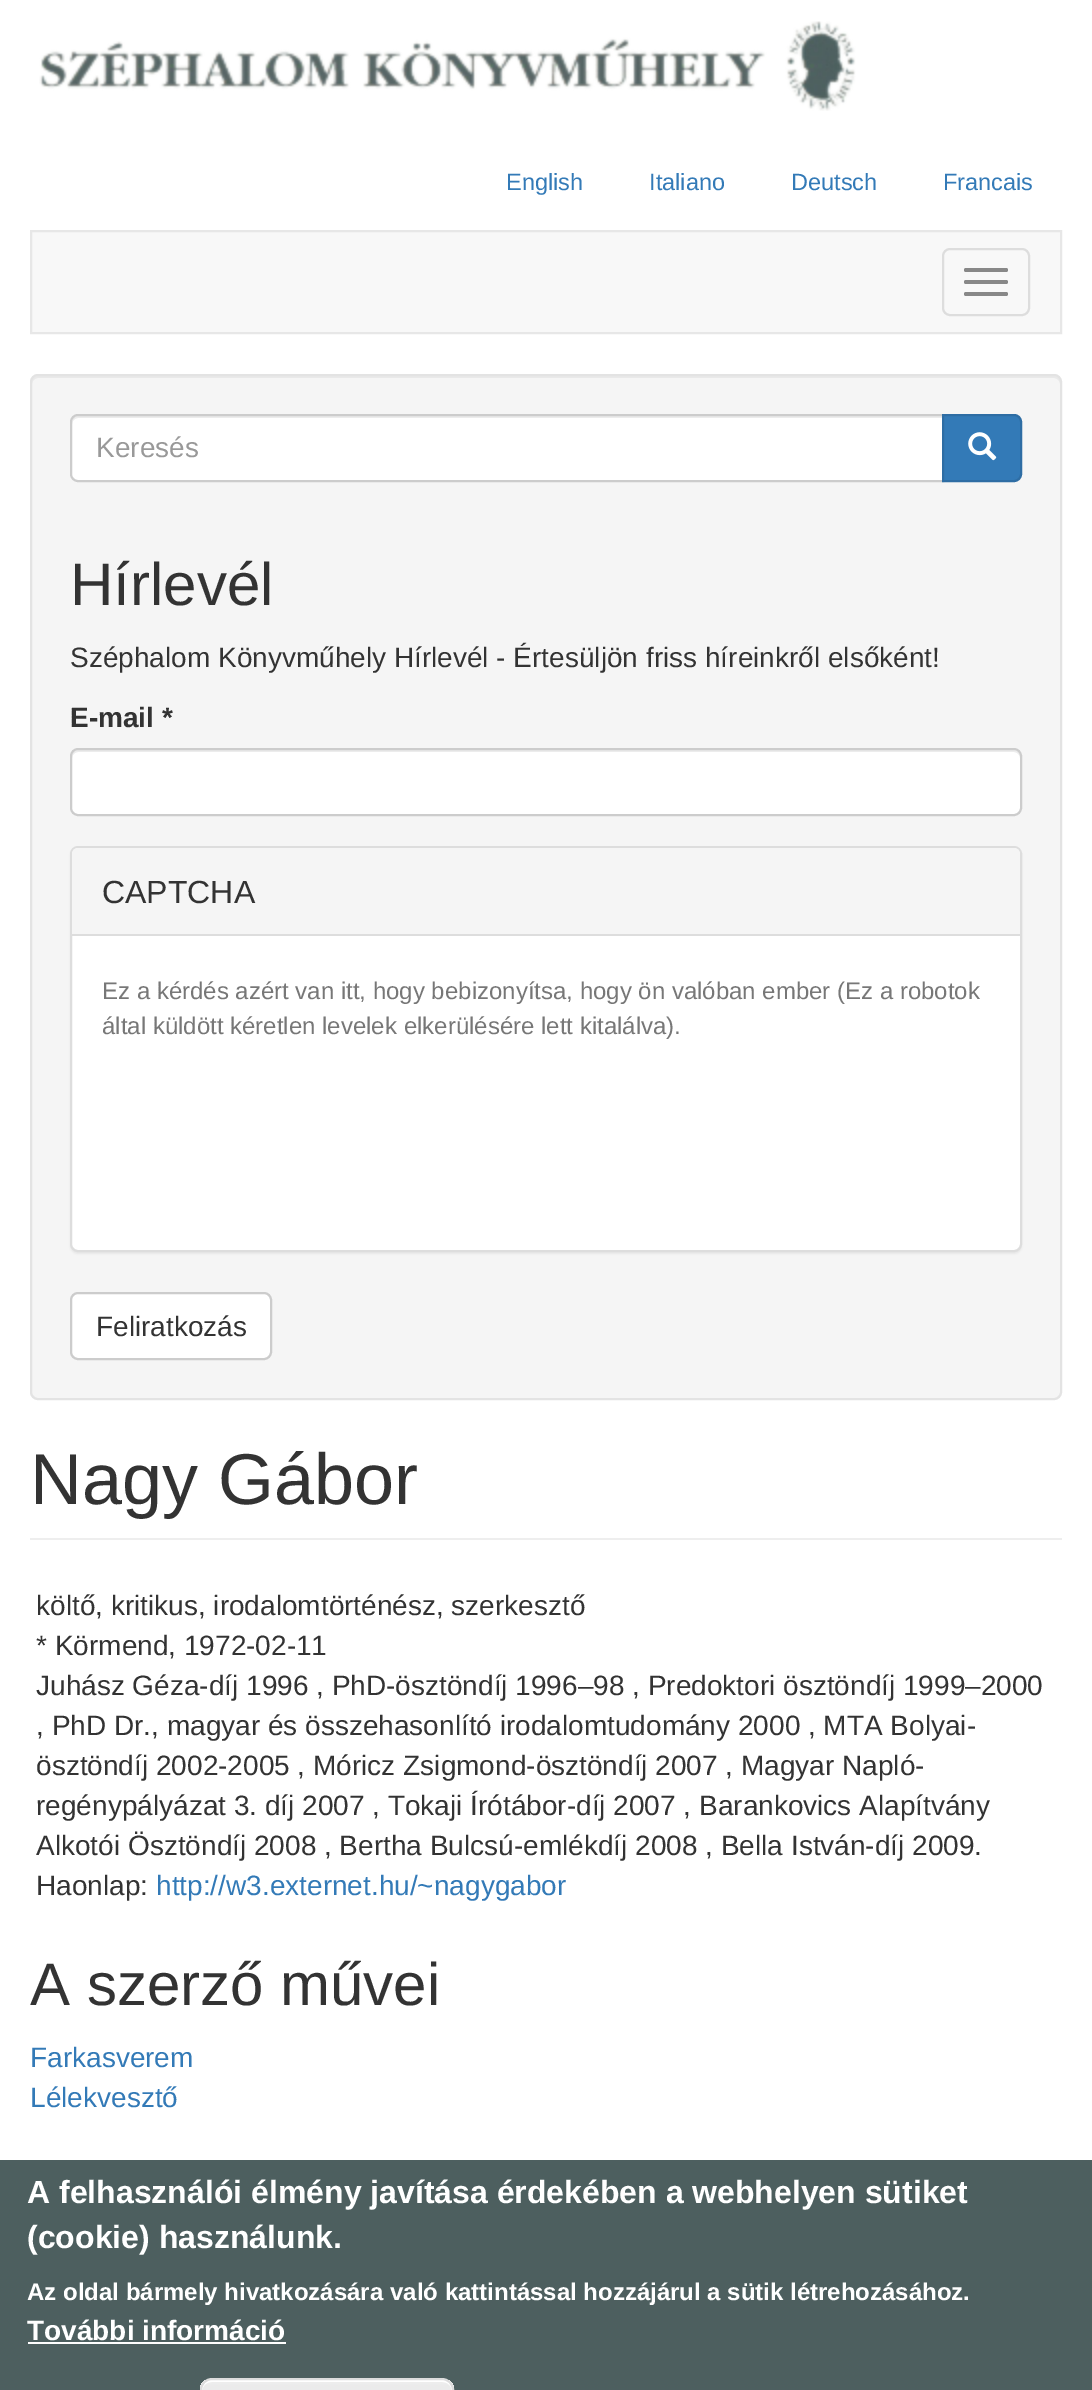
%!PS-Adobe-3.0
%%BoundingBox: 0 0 1092 2390
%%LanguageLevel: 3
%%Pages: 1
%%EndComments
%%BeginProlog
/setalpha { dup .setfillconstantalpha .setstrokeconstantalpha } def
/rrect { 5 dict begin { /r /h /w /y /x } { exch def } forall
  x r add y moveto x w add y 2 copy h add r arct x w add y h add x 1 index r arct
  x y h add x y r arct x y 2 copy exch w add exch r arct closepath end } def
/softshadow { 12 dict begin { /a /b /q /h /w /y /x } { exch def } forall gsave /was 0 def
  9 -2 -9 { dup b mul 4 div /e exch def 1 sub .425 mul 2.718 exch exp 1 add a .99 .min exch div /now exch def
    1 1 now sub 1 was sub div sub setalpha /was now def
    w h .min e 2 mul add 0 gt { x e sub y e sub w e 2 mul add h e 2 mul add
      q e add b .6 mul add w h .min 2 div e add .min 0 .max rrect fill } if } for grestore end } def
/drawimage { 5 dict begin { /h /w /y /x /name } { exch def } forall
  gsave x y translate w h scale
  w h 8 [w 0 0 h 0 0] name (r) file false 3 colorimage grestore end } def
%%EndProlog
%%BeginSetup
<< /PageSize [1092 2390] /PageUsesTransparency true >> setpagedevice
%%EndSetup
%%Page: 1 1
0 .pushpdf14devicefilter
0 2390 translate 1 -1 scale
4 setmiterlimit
1 setgray
0 0 1092 2390 rectfill
(images/1.raw) 39 21 817 90 drawimage
0.973 setgray
newpath 31 231 moveto 1061 231 lineto 1061 333 lineto 31 333 lineto closepath gsave fill grestore
0.906 setgray
2 setlinewidth
stroke
0.867 setgray
943 249 86 66 7 rrect stroke
0.533 setgray
964 268 44 4 2 rrect fill
964 280 44 4 2 rrect fill
964 292 44 4 2 rrect fill
0.961 setgray
30 374 1032 1026 8 rrect fill
0.914 setgray
newpath 38 378 moveto 1054 378 lineto 1057 378 1060 381 1060 384 curveto 1060 382 lineto 1060 379 1057 376 1054 376 curveto 38 376 lineto 35 376 32 379 32 382 curveto 32 384 lineto 32 381 35 378 38 378 curveto closepath fill
0.89 setgray
31 375 1030 1024 7 rrect stroke
1 setgray
newpath 78 414 moveto 944 414 lineto 944 482 lineto 78 482 lineto 73.5 482 70 478.5 70 474 curveto 70 422 lineto 70 417.5 73.5 414 78 414 curveto closepath fill
0.925 setgray
newpath 78 418 moveto 942 418 lineto 942 416 lineto 78 416 lineto 73 416 72 420 72 424 curveto 72 421 75 418 78 418 curveto closepath fill
0.8 setgray
newpath 78 415 moveto 943 415 lineto 943 481 lineto 78 481 lineto 74 481 71 478 71 474 curveto 71 422 lineto 71 418 74 415 78 415 curveto closepath stroke
0.2 0.478 0.718 setrgbcolor
newpath 943 415 moveto 1014 415 lineto 1018 415 1021 418 1021 422 curveto 1021 474 lineto 1021 478 1018 481 1014 481 curveto 943 481 lineto closepath gsave fill grestore
0.18 0.427 0.643 setrgbcolor
stroke
(images/2.raw) 968 432 29 29 drawimage
1 setgray
70 748 952 68 8 rrect fill
0.925 setgray
newpath 78 752 moveto 1014 752 lineto 1017 752 1020 755 1020 758 curveto 1020 756 lineto 1020 753 1017 750 1014 750 curveto 78 750 lineto 75 750 72 753 72 756 curveto 72 758 lineto 72 755 75 752 78 752 curveto closepath fill
0.8 setgray
71 749 950 66 7 rrect stroke
0 setgray
70 848 952 406 8 1 0.05 softshadow
1 setgray
71 847 950 404 7 rrect gsave fill grestore
0.867 setgray
stroke
0.961 setgray
newpath 78 848 moveto 1014 848 lineto 1017.5 848 1020 850.5 1020 854 curveto 1020 936 lineto 72 936 lineto 72 854 lineto 72 850.5 74.5 848 78 848 curveto closepath fill
0.867 setgray
72 934 948 2 rectfill
1 setgray
71 1293 200 66 7 rrect gsave fill grestore
0.8 setgray
stroke
0.933 setgray
30 1538 1032 2 rectfill
0.302 0.373 0.373 setrgbcolor
0 2160 1092 230 rectfill
1 setgray
28 2342 258 2 rectfill
gsave
200 2378 254 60 12 rrect clip newpath
gsave newpath 200 2380 moveto 454 2380 lineto 454 2390 lineto 200 2390 lineto closepath clip newpath
<< /ShadingType 2 /ColorSpace /DeviceRGB /Coords [327 2380 327 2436] /Extend [true true] /Function << /FunctionType 3 /Domain [0 1] /Functions [<< /FunctionType 2 /Domain [0 1] /C0 [0.929 0.929 0.929] /C1 [0.929 0.929 0.929] /N 1 >> << /FunctionType 2 /Domain [0 1] /C0 [0.929 0.929 0.929] /C1 [0.875 0.875 0.875] /N 1 >>] /Bounds [0.05] /Encode [0 1 0 1] >> >> shfill grestore
grestore
newpath 212 2382 moveto 442 2382 lineto 448 2382 452 2386 452 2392 curveto 452 2390 lineto 452 2384 448 2380 442 2380 curveto 212 2380 lineto 206 2380 202 2384 202 2390 curveto 202 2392 lineto 202 2386 206 2382 212 2382 curveto closepath fill
0.863 setgray
201 2379 252 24 11 rrect stroke
/LiberationSans-Regular [23.5 0 0 -23.5 0 0] selectfont
0.2 0.478 0.718 setrgbcolor
506 190 moveto (English) show
649 190 moveto (Italiano) show
791 190 moveto (Deutsch) show
943 190 moveto (Francais) show
/LiberationSans-Regular [28 0 0 -28 0 0] selectfont
0.6 setgray
96 457 moveto (Keresés) show
/LiberationSans-Regular [60 0 0 -60 0 0] selectfont
0.2 setgray
70 605 moveto (Hírlevél) show
/LiberationSans-Regular [28 0 0 -28 0 0] selectfont
70 667 moveto (Széphalom Könyvműhely Hírlevél - Értesüljön friss híreinkről elsőként!) show
/LiberationSans-Bold [28 0 0 -28 0 0] selectfont
70 727 moveto (E-mail *) show
/LiberationSans-Regular [32 0 0 -32 0 0] selectfont
102 903 moveto (CAPTCHA) show
/LiberationSans-Regular [24 0 0 -24 0 0] selectfont
0.467 setgray
102 999 moveto (Ez a kérdés azért van itt, hogy bebizonyítsa, hogy ön valóban ember \(Ez a robotok) show
102 1034 moveto (által küldött kéretlen levelek elkerülésére lett kitalálva\).) show
/LiberationSans-Regular [28 0 0 -28 0 0] selectfont
0.2 setgray
96 1336 moveto (Feliratkozás) show
/LiberationSans-Regular [72 0 0 -72 0 0] selectfont
30 1504 moveto (Nagy Gábor) show
/LiberationSans-Regular [28 0 0 -28 0 0] selectfont
36 1615 moveto (költő, kritikus, irodalomtörténész, szerkesztő) show
36 1655 moveto (* Körmend, 1972-02-11) show
36 1695 moveto (Juhász Géza-díj 1996 , PhD-ösztöndíj 1996–98 , Predoktori ösztöndíj 1999–2000) show
36 1735 moveto (, PhD Dr., magyar és összehasonlító irodalomtudomány 2000 , MTA Bolyai-) show
36 1775 moveto (ösztöndíj 2002-2005 , Móricz Zsigmond-ösztöndíj 2007 , Magyar Napló-) show
36 1815 moveto (regénypályázat 3. díj 2007 , Tokaji Írótábor-díj 2007 , Barankovics Alapítvány) show
36 1855 moveto (Alkotói Ösztöndíj 2008 , Bertha Bulcsú-emlékdíj 2008 , Bella István-díj 2009.) show
36 1895 moveto (Haonlap:) show
0.2 0.478 0.718 setrgbcolor
156 1895 moveto (http://w3.externet.hu/~nagygabor) show
/LiberationSans-Regular [60 0 0 -60 0 0] selectfont
0.2 setgray
30 2005 moveto (A szerző művei) show
/LiberationSans-Regular [28 0 0 -28 0 0] selectfont
0.2 0.478 0.718 setrgbcolor
30 2067 moveto (Farkasverem) show
30 2107 moveto (Lélekvesztő) show
/LiberationSans-Bold [32 0 0 -32 0 0] selectfont
1 setgray
27 2203 moveto (A felhasználói élmény javítása érdekében a webhelyen sütiket) show
27 2248 moveto (\(cookie\) használunk.) show
/LiberationSans-Bold [24 0 0 -24 0 0] selectfont
27 2300 moveto (Az oldal bármely hivatkozására való kattintással hozzájárul a sütik létrehozásához.) show
/LiberationSans-Bold [28 0 0 -28 0 0] selectfont
27 2340 moveto (További információ) show
.poppdf14devicefilter showpage
%%EOF
